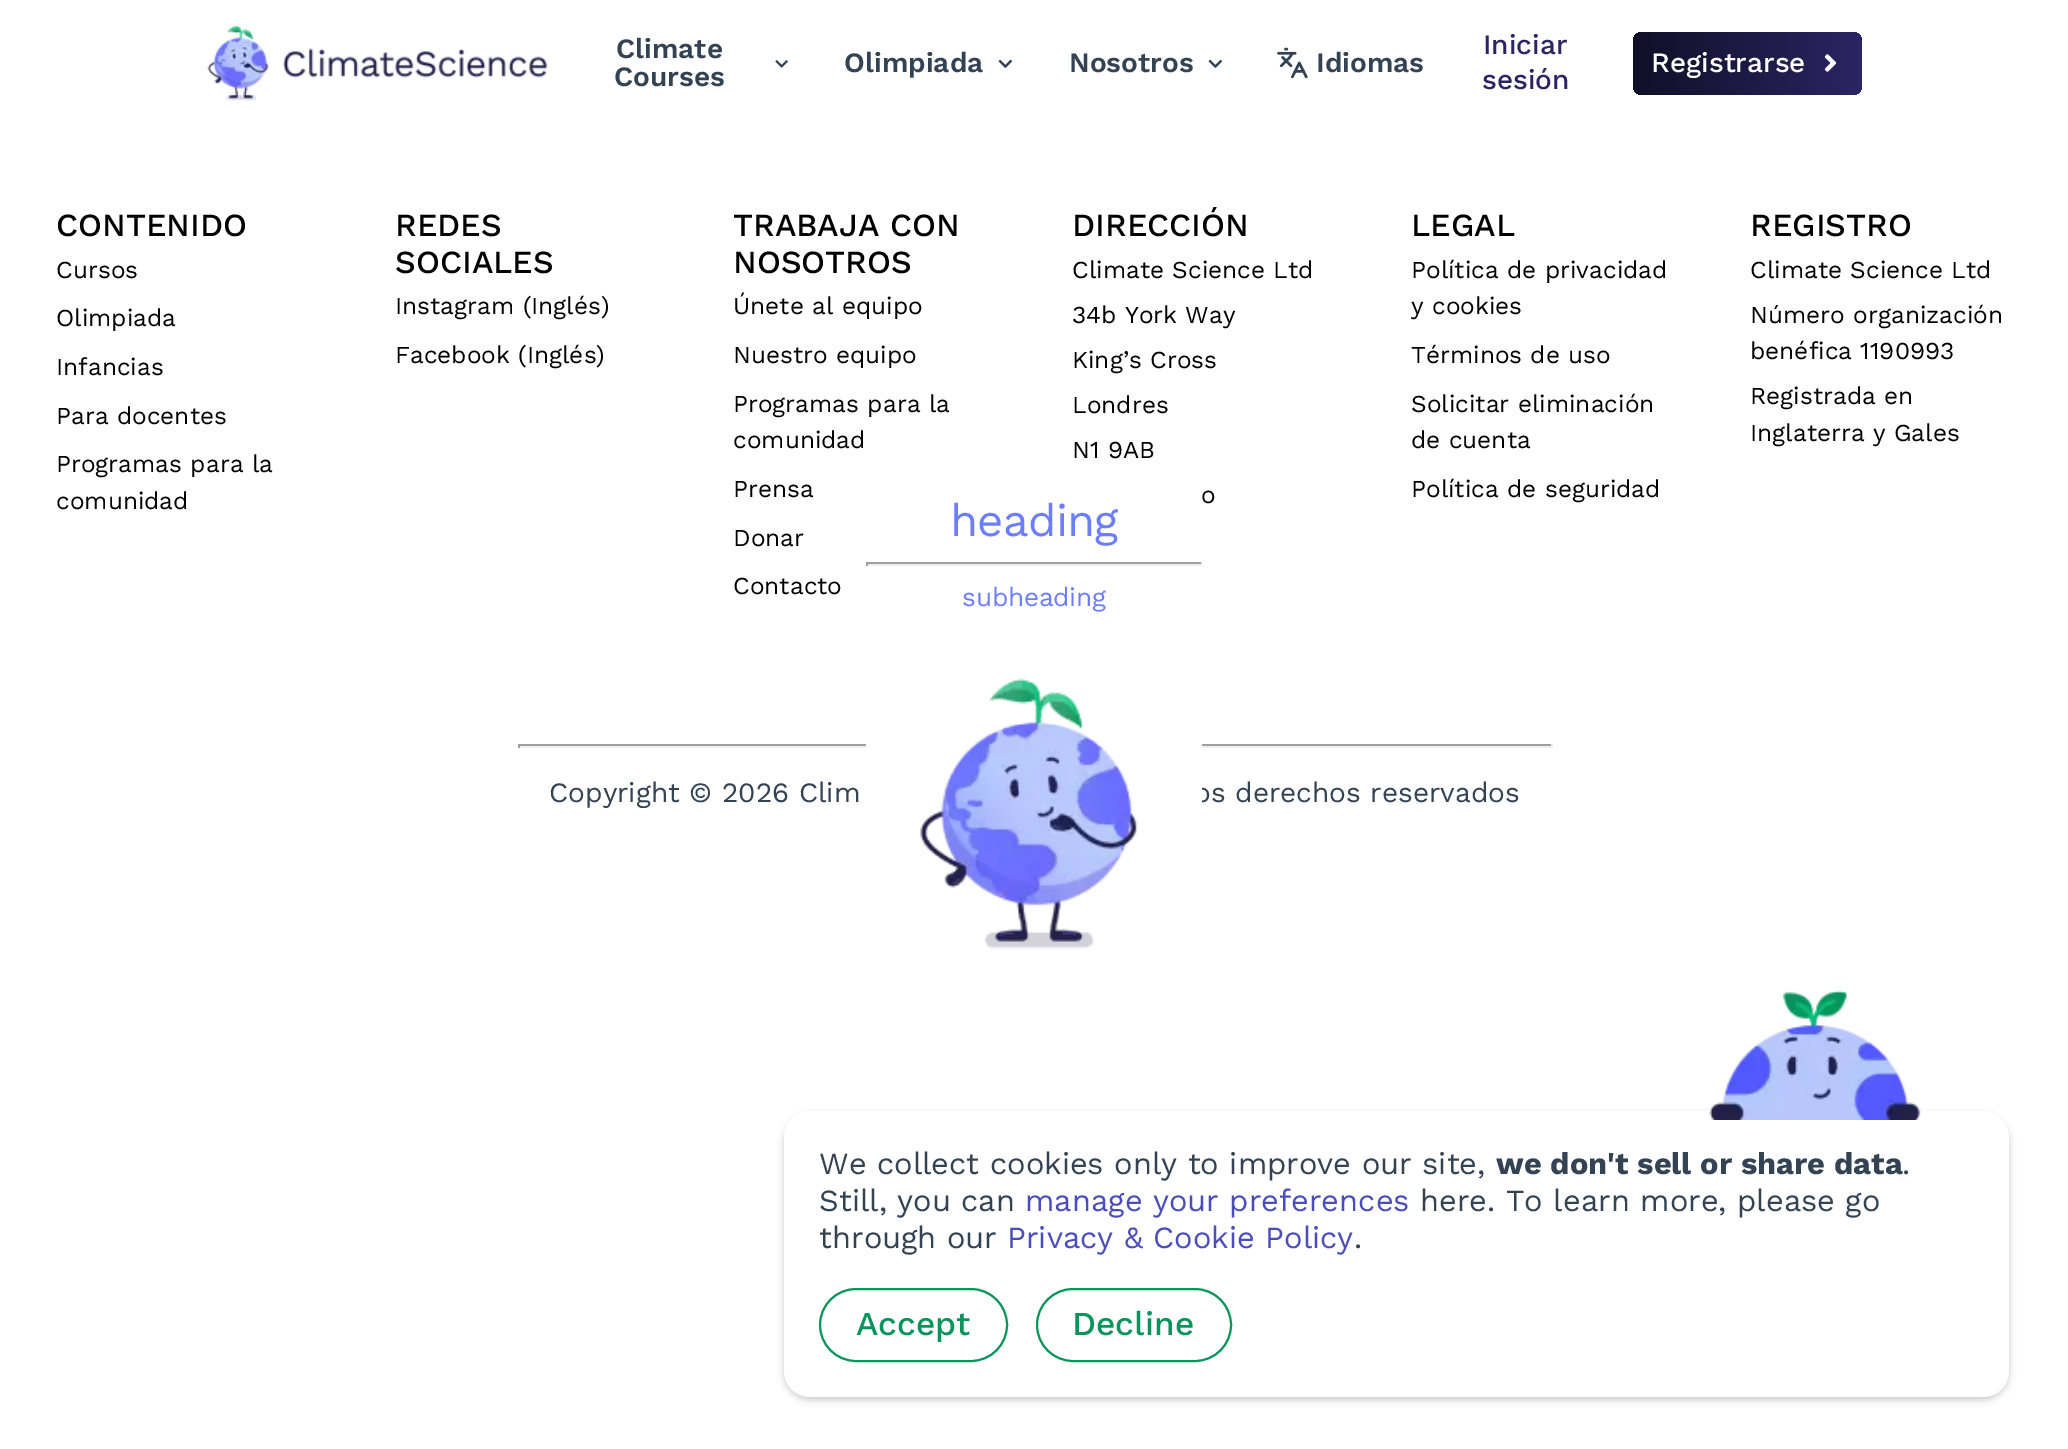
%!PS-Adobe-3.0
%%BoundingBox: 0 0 2068 1449
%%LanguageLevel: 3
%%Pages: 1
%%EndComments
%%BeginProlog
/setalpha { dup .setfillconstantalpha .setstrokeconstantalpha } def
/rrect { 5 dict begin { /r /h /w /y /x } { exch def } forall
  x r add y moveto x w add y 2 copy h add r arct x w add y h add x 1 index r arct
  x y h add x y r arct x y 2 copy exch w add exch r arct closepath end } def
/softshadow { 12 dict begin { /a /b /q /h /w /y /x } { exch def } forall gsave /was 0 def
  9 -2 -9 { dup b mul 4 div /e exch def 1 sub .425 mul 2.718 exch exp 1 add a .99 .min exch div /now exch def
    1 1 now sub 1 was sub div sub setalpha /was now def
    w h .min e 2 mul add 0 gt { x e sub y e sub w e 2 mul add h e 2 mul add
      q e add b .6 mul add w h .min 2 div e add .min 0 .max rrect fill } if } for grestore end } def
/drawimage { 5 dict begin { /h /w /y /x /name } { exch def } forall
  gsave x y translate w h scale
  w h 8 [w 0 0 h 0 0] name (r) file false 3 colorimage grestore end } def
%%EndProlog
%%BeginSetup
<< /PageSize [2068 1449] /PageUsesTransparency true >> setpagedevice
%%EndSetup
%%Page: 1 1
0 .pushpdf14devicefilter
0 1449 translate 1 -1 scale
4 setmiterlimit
1 setgray
0 0 2068 1449 rectfill
(images/1.raw) 207 25 341 76 drawimage
(images/2.raw) 775 60 13 8 drawimage
(images/3.raw) 998 59 14 9 drawimage
(images/3.raw) 1208 59 14 9 drawimage
(images/4.raw) 1277 47 31 32 drawimage
gsave 1633 32 229 63 9 rrect clip newpath
<< /ShadingType 2 /ColorSpace /DeviceRGB /Coords [1633 63 1862 63] /Extend [true true] /Function << /FunctionType 2 /Domain [0 1] /C0 [0.067 0.059 0.153] /C1 [0.169 0.145 0.388] /N 1 >> >> shfill grestore
(images/5.raw) 1824 54 13 18 drawimage
0.624 setgray
518 744 1034 2 rectfill
0.933 setgray
1551 744 2 4 rectfill
518 746 1034 2 rectfill
0.624 setgray
518 744 2 4 rectfill
0 setgray
784 1115 1225 285 26 3.5 0.2 softshadow
1 setgray
784 1111 1225 286 26 rrect fill
(images/7.raw) 1709 990 212 130 drawimage
0.031 0.584 0.361 setrgbcolor
2 setlinewidth
820 1289 187 72 36 rrect stroke
1037 1289 194 72 36 rrect stroke
/WorkSans-SemiBold [28 0 0 -28 0 0] selectfont
0.2 0.263 0.329 setrgbcolor
616 58 moveto (Climate) show
614 86 moveto (Courses) show
844 72 moveto (Olimpiada) show
1069 72 moveto (Nosotros) show
1316 72 moveto (Idiomas) show
/WorkSans-Medium [28 0 0 -28 0 0] selectfont
0.169 0.145 0.388 setrgbcolor
1483 54 moveto (Iniciar) show
1482 89 moveto (sesión) show
1 setgray
1651 72 moveto (Registrarse) show
/WorkSans-Medium [32.25 0 0 -32.25 0 0] selectfont
0 setgray
56 236 moveto (CONTENIDO) show
/WorkSans-Regular [24.4 0 0 -24.4 0 0] selectfont
56 278 moveto (Cursos) show
56 326 moveto (Olimpiada) show
56 375 moveto (Infancias) show
56 424 moveto (Para docentes) show
56 472 moveto (Programas para la) show
56 509 moveto (comunidad) show
/WorkSans-Medium [32.25 0 0 -32.25 0 0] selectfont
395 236 moveto (REDES) show
395 273 moveto (SOCIALES) show
/WorkSans-Regular [24.4 0 0 -24.4 0 0] selectfont
395 314 moveto (Instagram \(Inglés\)) show
395 363 moveto (Facebook \(Inglés\)) show
/WorkSans-Medium [32.25 0 0 -32.25 0 0] selectfont
733 236 moveto (TRABAJA CON) show
733 273 moveto (NOSOTROS) show
/WorkSans-Regular [24.4 0 0 -24.4 0 0] selectfont
733 314 moveto (Únete al equipo) show
733 363 moveto (Nuestro equipo) show
733 412 moveto (Programas para la) show
733 448 moveto (comunidad) show
733 497 moveto (Prensa) show
733 546 moveto (Donar) show
733 594 moveto (Contacto) show
/WorkSans-Medium [32.25 0 0 -32.25 0 0] selectfont
1072 236 moveto (DIRECCIÓN) show
/WorkSans-Regular [24.4 0 0 -24.4 0 0] selectfont
1072 278 moveto (Climate Science Ltd) show
1072 323 moveto (34b York Way) show
1072 368 moveto (King’s Cross) show
1072 413 moveto (Londres) show
1072 458 moveto (N1 9AB) show
1201 503 moveto (o) show
/WorkSans-Medium [32.25 0 0 -32.25 0 0] selectfont
1411 236 moveto (LEGAL) show
/WorkSans-Regular [24.4 0 0 -24.4 0 0] selectfont
1411 278 moveto (Política de privacidad) show
1411 314 moveto (y cookies) show
1411 363 moveto (Términos de uso) show
1411 412 moveto (Solicitar eliminación) show
1411 448 moveto (de cuenta) show
1411 497 moveto (Política de seguridad) show
/WorkSans-Medium [32.25 0 0 -32.25 0 0] selectfont
1750 236 moveto (REGISTRO) show
/WorkSans-Regular [24.4 0 0 -24.4 0 0] selectfont
1750 278 moveto (Climate Science Ltd) show
1750 323 moveto (Número organización) show
1750 359 moveto (benéfica 1190993) show
1750 404 moveto (Registrada en) show
1750 441 moveto (Inglaterra y Gales) show
/WorkSans-Regular [28 0 0 -28 0 0] selectfont
0.2 0.263 0.329 setrgbcolor
549 802 moveto (Copyright © 2026 Clim) show
1194 802 moveto (os derechos reservados) show
1 setgray
866 460 336 529 21 rrect fill
/WorkSans-Regular [45.5 0 0 -45.5 0 0] selectfont
0.424 0.49 0.996 setrgbcolor
950 536 moveto -0.75 0 (heading) ashow
0.624 setgray
866 562 336 2 rectfill
0.933 setgray
1201 562 2 4 rectfill
866 564 336 2 rectfill
0.624 setgray
866 562 2 4 rectfill
/WorkSans-Regular [26.25 0 0 -26.25 0 0] selectfont
0.424 0.49 0.996 setrgbcolor
962 606 moveto -0.25 0 (subheading) ashow
(images/6.raw) 920 678 218 271 drawimage
/WorkSans-Regular [30.8 0 0 -30.8 0 0] selectfont
0.2 0.263 0.329 setrgbcolor
819 1174 moveto (We collect cookies only to improve our site,) show
/WorkSans-Bold [30.8 0 0 -30.8 0 0] selectfont
1496 1174 moveto (we don't sell or share data) show
/WorkSans-Regular [30.8 0 0 -30.8 0 0] selectfont
1902 1174 moveto (.) show
819 1211 moveto (Still, you can) show
0.29 0.302 0.733 setrgbcolor
1025 1211 moveto (manage your preferences) show
0.2 0.263 0.329 setrgbcolor
1420 1211 moveto (here. To learn more, please go) show
819 1248 moveto (through our) show
0.29 0.302 0.733 setrgbcolor
1007 1248 moveto (Privacy & Cookie Policy) show
0.2 0.263 0.329 setrgbcolor
1354 1248 moveto (.) show
/WorkSans-Medium [33.5 0 0 -33.5 0 0] selectfont
0.031 0.584 0.361 setrgbcolor
856 1335 moveto (Accept) show
1072 1335 moveto (Decline) show
.poppdf14devicefilter showpage
%%EOF
